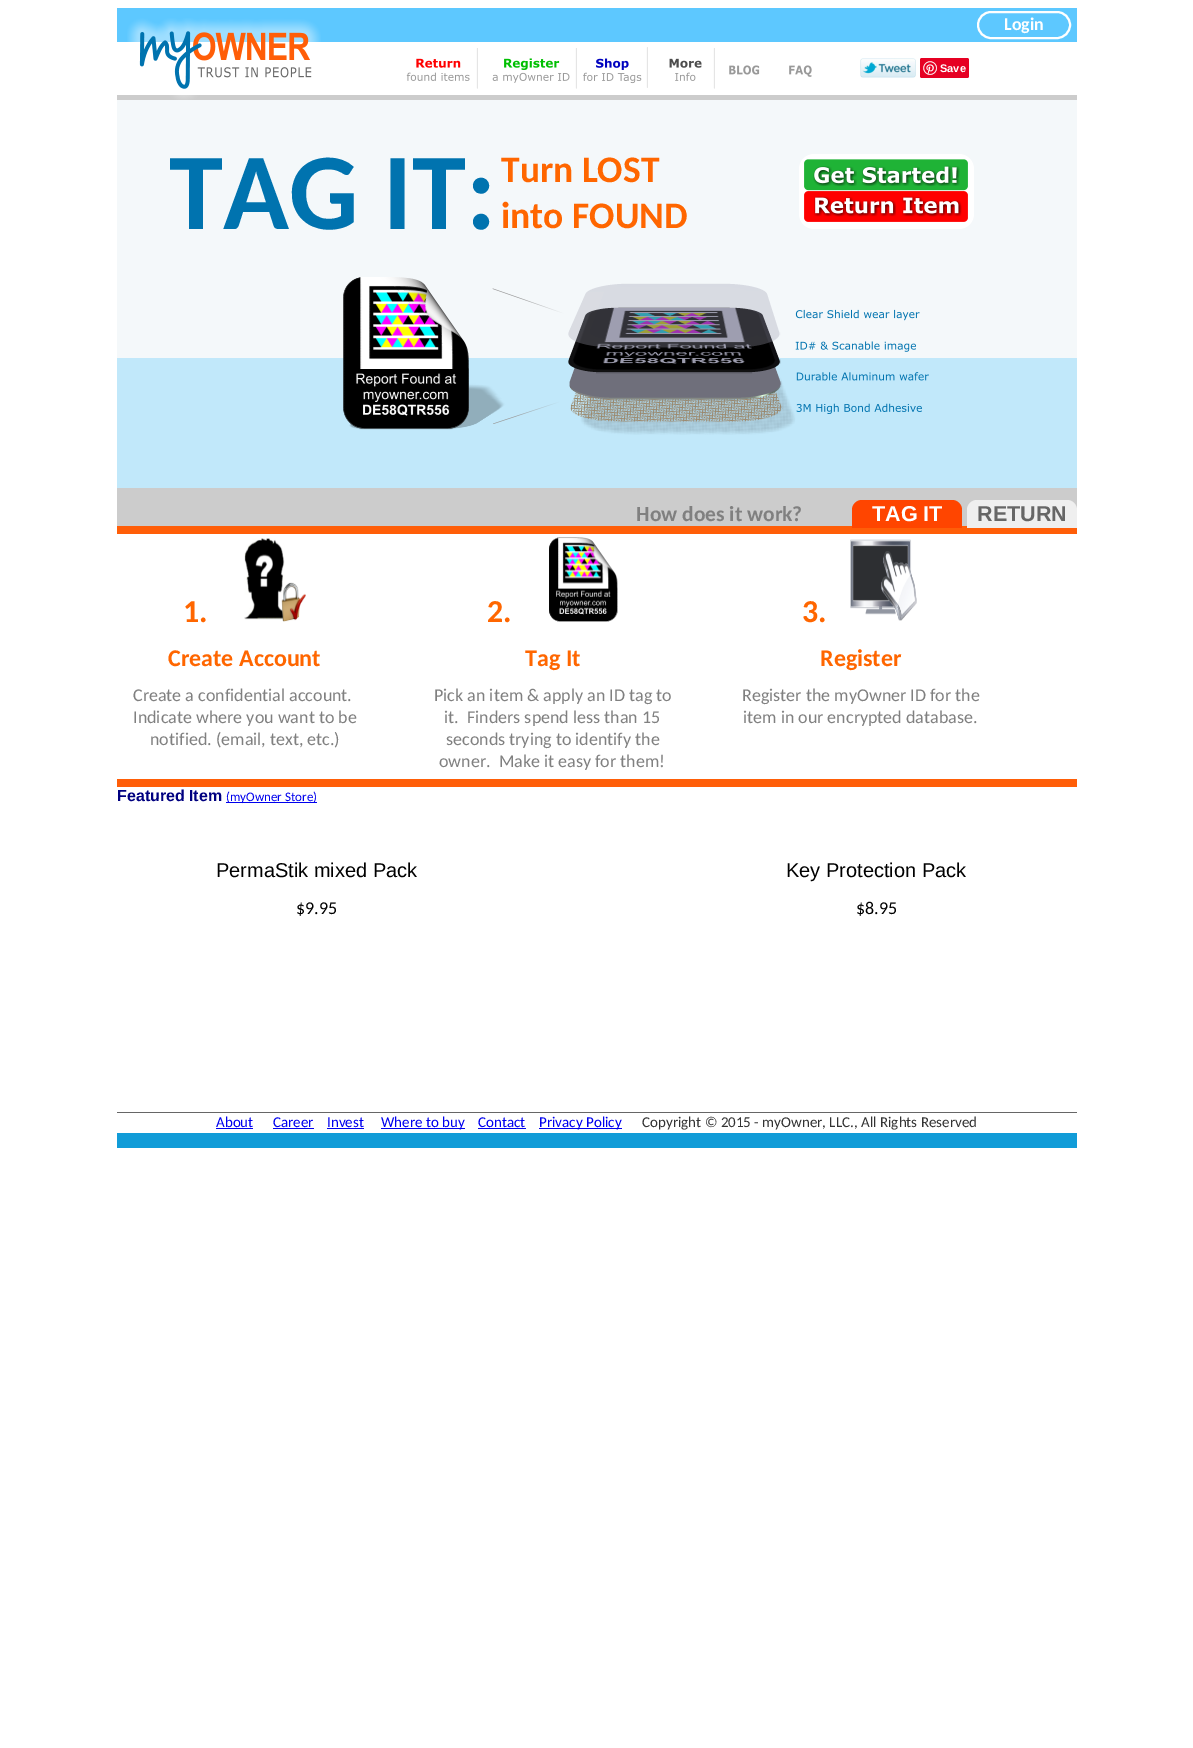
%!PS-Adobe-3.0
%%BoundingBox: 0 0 1193 1748
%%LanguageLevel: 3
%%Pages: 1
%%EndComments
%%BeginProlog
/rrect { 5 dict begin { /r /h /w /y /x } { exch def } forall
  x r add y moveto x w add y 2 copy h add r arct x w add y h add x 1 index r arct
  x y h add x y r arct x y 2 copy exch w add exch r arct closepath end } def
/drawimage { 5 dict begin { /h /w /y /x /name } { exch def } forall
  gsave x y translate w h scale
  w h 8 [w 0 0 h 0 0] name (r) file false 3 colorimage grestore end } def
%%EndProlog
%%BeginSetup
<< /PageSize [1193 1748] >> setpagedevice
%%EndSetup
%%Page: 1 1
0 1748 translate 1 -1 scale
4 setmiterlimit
1 setgray
0 0 1193 1748 rectfill
0.8 setgray
117 95 960 5 rectfill
0.365 0.784 1 setrgbcolor
117 8 960 34 rectfill
(images/1.raw) 127 18 194 82 drawimage
(images/2.raw) 406 48 72 41 drawimage
(images/3.raw) 492 48 85 41 drawimage
(images/4.raw) 583 47 65 41 drawimage
(images/5.raw) 669 48 46 41 drawimage
(images/6.raw) 729 65 31 10 drawimage
(images/7.raw) 789 65 23 12 drawimage
(images/8.raw) 860 58 56 20 drawimage
0.902 0 0.137 setrgbcolor
920 58 49 20 2 rrect fill
(images/9.raw) 923 61 14 14 drawimage
1 setgray
2 setlinewidth
978 12 92 26 13 rrect stroke
0.957 0.973 0.98 setrgbcolor
117 100 960 258 rectfill
1 setgray
799 154 175 75 15 rrect fill
(images/10.raw) 804 159 164 32 drawimage
(images/11.raw) 804 191 164 31 drawimage
0.757 0.91 0.98 setrgbcolor
117 358 960 130 rectfill
(images/12.raw) 343 277 586 158 drawimage
0.8 setgray
117 488 960 38 rectfill
1 0.369 0.031 setrgbcolor
117 526 960 8 rectfill
1 0.271 0 setrgbcolor
newpath 862 500 moveto 952 500 lineto 957.5 500 962 504.5 962 510 curveto 962 528 lineto 852 528 lineto 852 510 lineto 852 504.5 856.5 500 862 500 curveto closepath fill
0.937 setgray
newpath 977 500 moveto 1067 500 lineto 1072.5 500 1077 504.5 1077 510 curveto 1077 528 lineto 967 528 lineto 967 510 lineto 967 504.5 971.5 500 977 500 curveto closepath fill
(images/13.raw) 244 538 62 84 drawimage
(images/14.raw) 549 537 69 85 drawimage
(images/15.raw) 850 539 67 82 drawimage
1 0.369 0.031 setrgbcolor
117 779 960 8 rectfill
0 0 0.933 setrgbcolor
226 802 91 1 rectfill
0.4 setgray
117 1112 960 1 rectfill
0 0 0.933 setrgbcolor
216 1128 37 1 rectfill
273 1128 41 1 rectfill
327 1128 37 1 rectfill
381 1128 84 1 rectfill
478 1128 48 1 rectfill
539 1128 83 1 rectfill
0.067 0.612 0.847 setrgbcolor
117 1133 960 15 rectfill
/LiberationSans-Bold [11 0 0 -11 0 0] selectfont
1 setgray
940 72 moveto (Save) show
/Carlito-Bold [18 0 0 -18 0 0] selectfont
1004 30 moveto (Login) show
/Carlito-Bold [109 0 0 -109 0 0] selectfont
0 0.451 0.686 setrgbcolor
169 229 moveto (TAG IT:) show
/Carlito-Bold [37.5 0 0 -37.5 0 0] selectfont
1 0.4 0 setrgbcolor
501 182 moveto (Turn LOST) show
501 228 moveto (into FOUND) show
/Carlito-Bold [21.5 0 0 -21.5 0 0] selectfont
0.502 setgray
636 521 moveto (How does it work?) show
/LiberationSans-Bold [21.5 0 0 -21.5 0 0] selectfont
1 setgray
872 521 moveto (TAG IT) show
0.4 setgray
977 521 moveto (RETURN) show
/Carlito-Bold [32 0 0 -32 0 0] selectfont
1 0.4 0 setrgbcolor
183 622 moveto (1.) show
487 622 moveto (2.) show
802 622 moveto (3.) show
/Carlito-Bold [24 0 0 -24 0 0] selectfont
168 666 moveto (Create Account) show
525 666 moveto (Tag It) show
820 666 moveto (Register) show
/Carlito-Regular [18 0 0 -18 0 0] selectfont
0.502 setgray
133 701 moveto (Create a confidential account.) show
133 723 moveto (Indicate where you want to be) show
150 745 moveto (notified. \(email, text, etc.\)) show
434 701 moveto (Pick an item & apply an ID tag to) show
444 723 moveto (it.  Finders spend less than 15) show
446 745 moveto (seconds trying to identify the) show
439 767 moveto (owner.  Make it easy for them!) show
742 701 moveto (Register the myOwner ID for the) show
743 723 moveto (item in our encrypted database.) show
/LiberationSans-Bold [16 0 0 -16 0 0] selectfont
0 0 0.502 setrgbcolor
117 801 moveto (Featured Item) show
/Carlito-Regular [13 0 0 -13 0 0] selectfont
0 0 0.933 setrgbcolor
226 801 moveto (\(myOwner Store\)) show
/LiberationSans-Regular [20 0 0 -20 0 0] selectfont
0 setgray
216 877 moveto (PermaStik mixed Pack) show
/Carlito-Regular [18 0 0 -18 0 0] selectfont
296 914 moveto ($9.95) show
/LiberationSans-Regular [20 0 0 -20 0 0] selectfont
786 877 moveto (Key Protection Pack) show
/Carlito-Regular [18 0 0 -18 0 0] selectfont
856 914 moveto ($8.95) show
/Carlito-Regular [15 0 0 -15 0 0] selectfont
0 0 0.933 setrgbcolor
216 1127 moveto (About) show
273 1127 moveto (Career) show
327 1127 moveto (Invest) show
381 1127 moveto (Where to buy) show
478 1127 moveto (Contact) show
539 1127 moveto (Privacy Policy) show
0.2 setgray
642 1127 moveto (Copyright © 2015 - myOwner, LLC., All Rights Reserved) show
showpage
%%EOF
